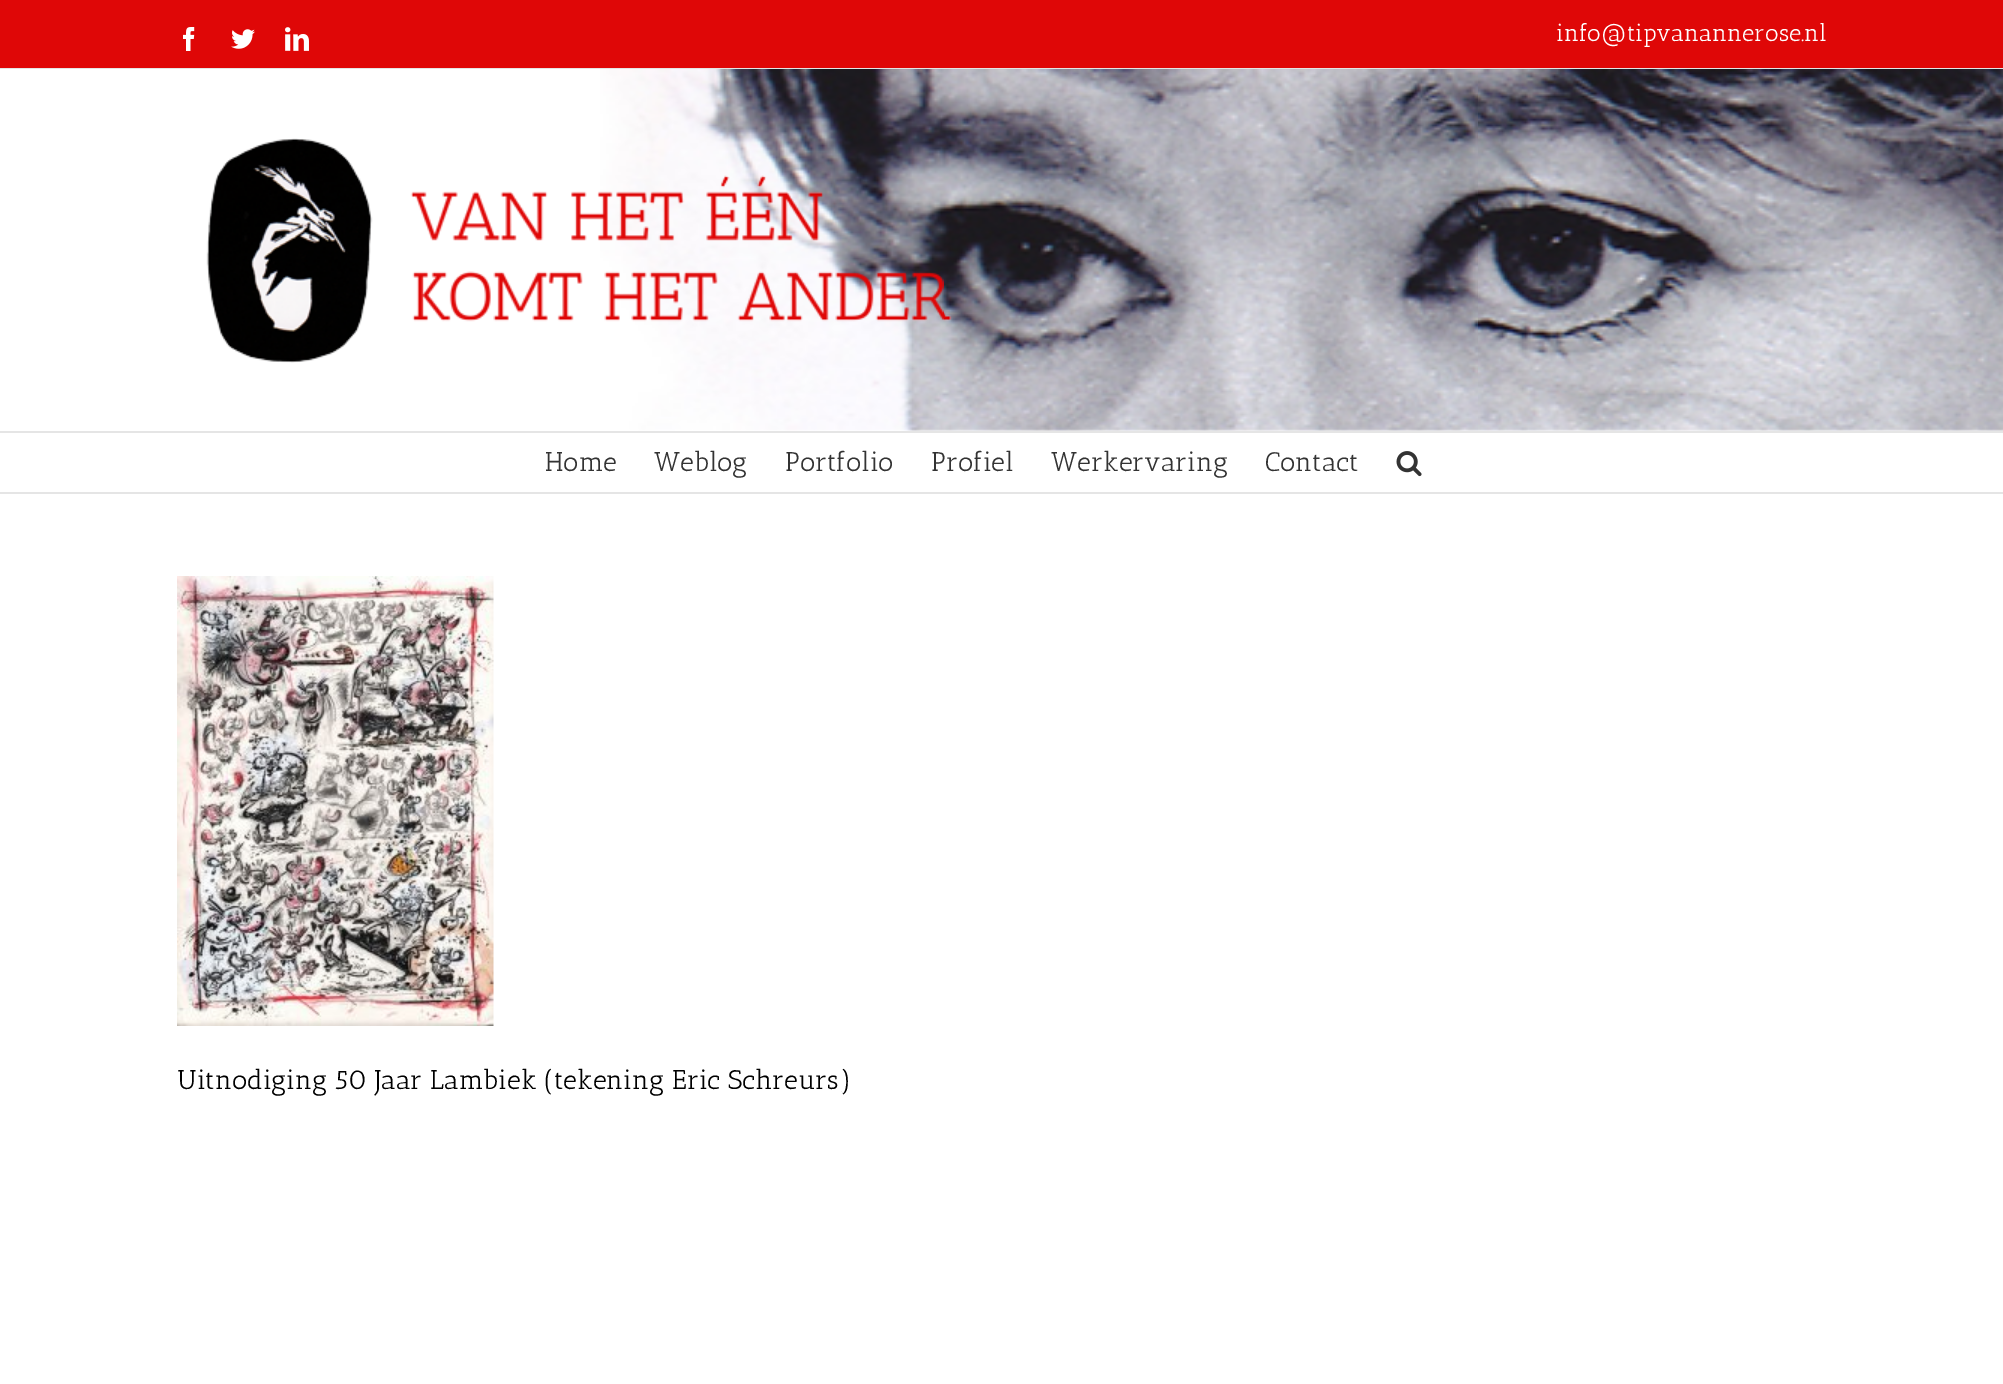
%!PS-Adobe-3.0
%%BoundingBox: 0 0 2003 1384
%%LanguageLevel: 3
%%Pages: 1
%%EndComments
%%BeginProlog
/drawimage { 5 dict begin { /h /w /y /x /name } { exch def } forall
  gsave x y translate w h scale
  w h 8 [w 0 0 h 0 0] name (r) file false 3 colorimage grestore end } def
%%EndProlog
%%BeginSetup
<< /PageSize [2003 1384] >> setpagedevice
%%EndSetup
%%Page: 1 1
0 1384 translate 1 -1 scale
4 setmiterlimit
1 setgray
0 0 2003 1384 rectfill
0.875 0.027 0.027 setrgbcolor
0 0 2003 68 rectfill
0.898 setgray
0 68 2003 1 rectfill
(images/1.raw) 183 27 12 24 drawimage
(images/2.raw) 231 29 24 20 drawimage
(images/3.raw) 285 27 24 24 drawimage
(images/4.raw) 600 69 1403 362 drawimage
0 431 2003 2 rectfill
(images/5.raw) 206 138 746 225 drawimage
0 492 2003 2 rectfill
(images/6.raw) 1396 451 26 26 drawimage
(images/7.raw) 177 576 317 450 drawimage
/AnticSlab-Regular [24 0 0 -24 0 0] selectfont
1 setgray
1556 41 moveto (info@tipvanannerose.nl) show
/AnticSlab-Regular [27 0 0 -27 0 0] selectfont
0.2 setgray
545 471 moveto (Home) show
654 471 moveto (Weblog) show
785 471 moveto (Portfolio) show
931 471 moveto (Profiel) show
1051 471 moveto (Werkervaring) show
1265 471 moveto (Contact) show
0 setgray
177 1089 moveto (Uitnodiging 50 Jaar Lambiek \(tekening Eric Schreurs\)) show
showpage
%%EOF
